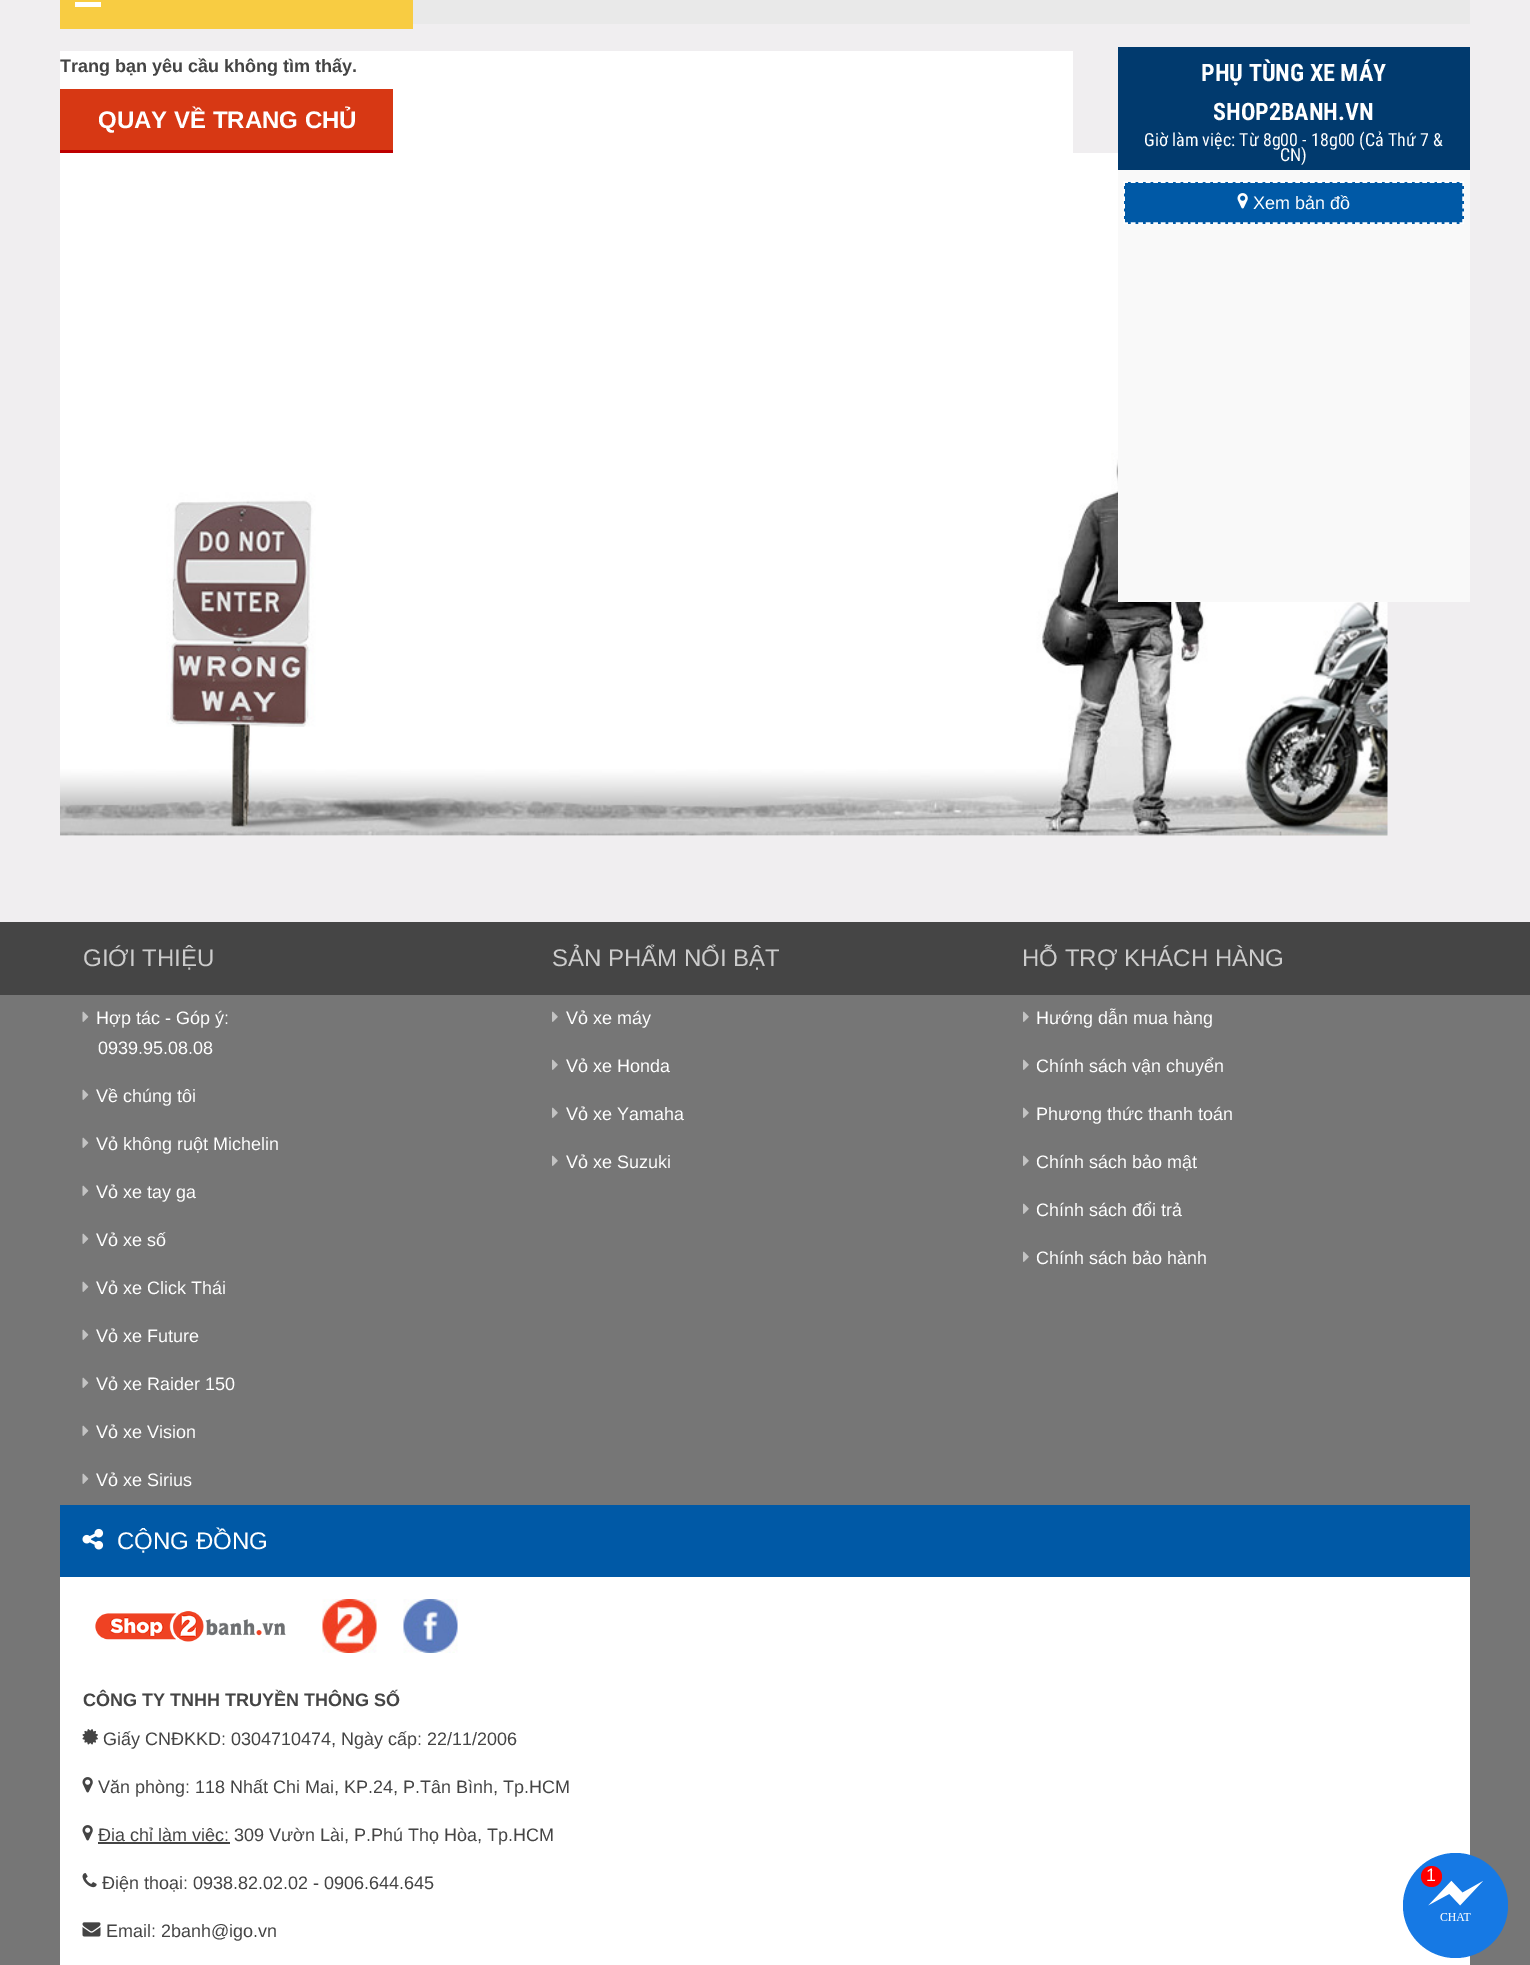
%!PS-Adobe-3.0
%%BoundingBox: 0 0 1530 1965
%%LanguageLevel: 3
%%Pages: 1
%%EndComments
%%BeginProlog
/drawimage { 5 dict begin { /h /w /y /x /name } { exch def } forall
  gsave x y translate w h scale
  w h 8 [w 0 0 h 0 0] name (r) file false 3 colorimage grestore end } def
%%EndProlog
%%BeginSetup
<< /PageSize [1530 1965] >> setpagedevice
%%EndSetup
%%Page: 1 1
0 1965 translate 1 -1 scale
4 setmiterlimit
0.941 0.933 0.941 setrgbcolor
0 0 1530 1965 rectfill
0.914 setgray
413 0 1057 24 rectfill
0.973 0.8 0.259 setrgbcolor
60 0 353 29 rectfill
1 setgray
75 2 26 5 rectfill
60 51 1013 785 rectfill
0.843 0.22 0.078 setrgbcolor
60 89 333 61 rectfill
0.745 0 0 setrgbcolor
60 150 333 3 rectfill
(images/1.raw) 60 153 1328 683 drawimage
0.976 setgray
1118 170 352 432 rectfill
0.004 0.227 0.431 setrgbcolor
1118 47 352 123 rectfill
0 0.349 0.651 setrgbcolor
1124 182 340 42 rectfill
1 setgray
1.5 setlinewidth
[4.5 2.97] 0 setdash
newpath 1123.5 182 moveto 1464 182 lineto stroke
[4.5 3] 0 setdash
newpath 1463 181.5 moveto 1463 223.5 lineto stroke
[4.5 2.97] 0 setdash
newpath 1123.5 223 moveto 1464 223 lineto stroke
[4.5 3] 0 setdash
newpath 1124 181.5 moveto 1124 223.5 lineto stroke
(images/2.raw) 1237 193 11 16 drawimage
0.463 setgray
0 995 1530 970 rectfill
0.271 setgray
0 922 1530 73 rectfill
(images/3.raw) 82 1011 7 11 drawimage
(images/3.raw) 82 1089 7 11 drawimage
(images/3.raw) 82 1137 7 11 drawimage
(images/3.raw) 82 1185 7 11 drawimage
(images/3.raw) 82 1233 7 11 drawimage
(images/3.raw) 82 1281 7 11 drawimage
(images/3.raw) 82 1329 7 11 drawimage
(images/3.raw) 82 1377 7 11 drawimage
(images/3.raw) 82 1425 7 11 drawimage
(images/3.raw) 82 1473 7 11 drawimage
(images/4.raw) 552 1011 6 11 drawimage
(images/4.raw) 552 1059 6 11 drawimage
(images/4.raw) 552 1107 6 11 drawimage
(images/4.raw) 552 1155 6 11 drawimage
(images/4.raw) 1023 1011 6 11 drawimage
(images/4.raw) 1023 1059 6 11 drawimage
(images/4.raw) 1023 1107 6 11 drawimage
(images/4.raw) 1023 1155 6 11 drawimage
(images/4.raw) 1023 1203 6 11 drawimage
(images/4.raw) 1023 1251 6 11 drawimage
1 setgray
60 1577 1410 388 rectfill
0 0.349 0.651 setrgbcolor
60 1505 1410 72 rectfill
(images/5.raw) 82 1528 22 22 drawimage
(images/6.raw) 95 1611 191 31 drawimage
(images/7.raw) 322 1599 55 54 drawimage
(images/8.raw) 403 1599 55 54 drawimage
(images/9.raw) 82 1729 16 16 drawimage
(images/10.raw) 82 1777 11 16 drawimage
(images/10.raw) 82 1825 11 16 drawimage
0.267 setgray
98 1842 132 2 rectfill
(images/11.raw) 82 1873 15 15 drawimage
(images/12.raw) 82 1922 19 15 drawimage
0.086 0.475 0.894 setrgbcolor
newpath 1455.5 1905.5 52.5 0 360 arc closepath fill
(images/13.raw) 1428 1880 55 41 drawimage
1 0 0 setrgbcolor
newpath 1431.5 1876.5 10.5 0 360 arc closepath fill
/LiberationSans-Bold [18 0 0 -18 0 0] selectfont
0.267 setgray
60 72 moveto (Trang bạn yêu cầu không tìm thấy.) show
/LiberationSans-Bold [24 0 0 -24 0 0] selectfont
1 setgray
98 128 moveto (QUAY VỀ TRANG CHỦ) show
/RobotoCondensed-Bold [24 0 0 -24 0 0] selectfont
1201 81 moveto (PHỤ TÙNG XE MÁY) show
1213 120 moveto (SHOP2BANH.VN) show
/RobotoCondensed-Regular [18 0 0 -18 0 0] selectfont
1144 146 moveto (Giờ làm việc: Từ 8g00 - 18g00 \(Cả Thứ 7 &) show
1280 161 moveto (CN\)) show
/LiberationSans-Regular [18 0 0 -18 0 0] selectfont
1253 209 moveto (Xem bản đồ) show
/LiberationSans-Regular [24 0 0 -24 0 0] selectfont
0.8 setgray
83 966 moveto (GIỚI THIỆU) show
/LiberationSans-Regular [18 0 0 -18 0 0] selectfont
1 setgray
96 1024 moveto (Hợp tác - Góp ý:) show
98 1054 moveto (0939.95.08.08) show
96 1102 moveto (Về chúng tôi) show
96 1150 moveto (Vỏ không ruột Michelin) show
96 1198 moveto (Vỏ xe tay ga) show
96 1246 moveto (Vỏ xe số) show
96 1294 moveto (Vỏ xe Click Thái) show
96 1342 moveto (Vỏ xe Future) show
96 1390 moveto (Vỏ xe Raider 150) show
96 1438 moveto (Vỏ xe Vision) show
96 1486 moveto (Vỏ xe Sirius) show
/LiberationSans-Regular [24 0 0 -24 0 0] selectfont
0.8 setgray
552 966 moveto (SẢN PHẨM NỔI BẬT) show
/LiberationSans-Regular [18 0 0 -18 0 0] selectfont
1 setgray
566 1024 moveto (Vỏ xe máy) show
566 1072 moveto (Vỏ xe Honda) show
566 1120 moveto (Vỏ xe Yamaha) show
566 1168 moveto (Vỏ xe Suzuki) show
/LiberationSans-Regular [24 0 0 -24 0 0] selectfont
0.8 setgray
1022 966 moveto (HỖ TRỢ KHÁCH HÀNG) show
/LiberationSans-Regular [18 0 0 -18 0 0] selectfont
1 setgray
1036 1024 moveto (Hướng dẫn mua hàng) show
1036 1072 moveto (Chính sách vận chuyển) show
1036 1120 moveto (Phương thức thanh toán) show
1036 1168 moveto (Chính sách bảo mật) show
1036 1216 moveto (Chính sách đổi trả) show
1036 1264 moveto (Chính sách bảo hành) show
/LiberationSans-Regular [24 0 0 -24 0 0] selectfont
117 1549 moveto (CỘNG ĐỒNG) show
/LiberationSans-Bold [18 0 0 -18 0 0] selectfont
0.267 setgray
83 1706 moveto (CÔNG TY TNHH TRUYỀN THÔNG SỐ) show
/LiberationSans-Regular [18 0 0 -18 0 0] selectfont
103 1745 moveto (Giấy CNĐKKD: 0304710474, Ngày cấp: 22/11/2006) show
98 1793 moveto (Văn phòng: 118 Nhất Chi Mai, KP.24, P.Tân Bình, Tp.HCM) show
98 1841 moveto (Địa chỉ làm việc: 309 Vườn Lài, P.Phú Thọ Hòa, Tp.HCM) show
102 1889 moveto (Điện thoại: 0938.82.02.02 - 0906.644.645) show
106 1937 moveto (Email: 2banh@igo.vn) show
1 setgray
1426 1881 moveto (1) show
showpage
%%EOF
